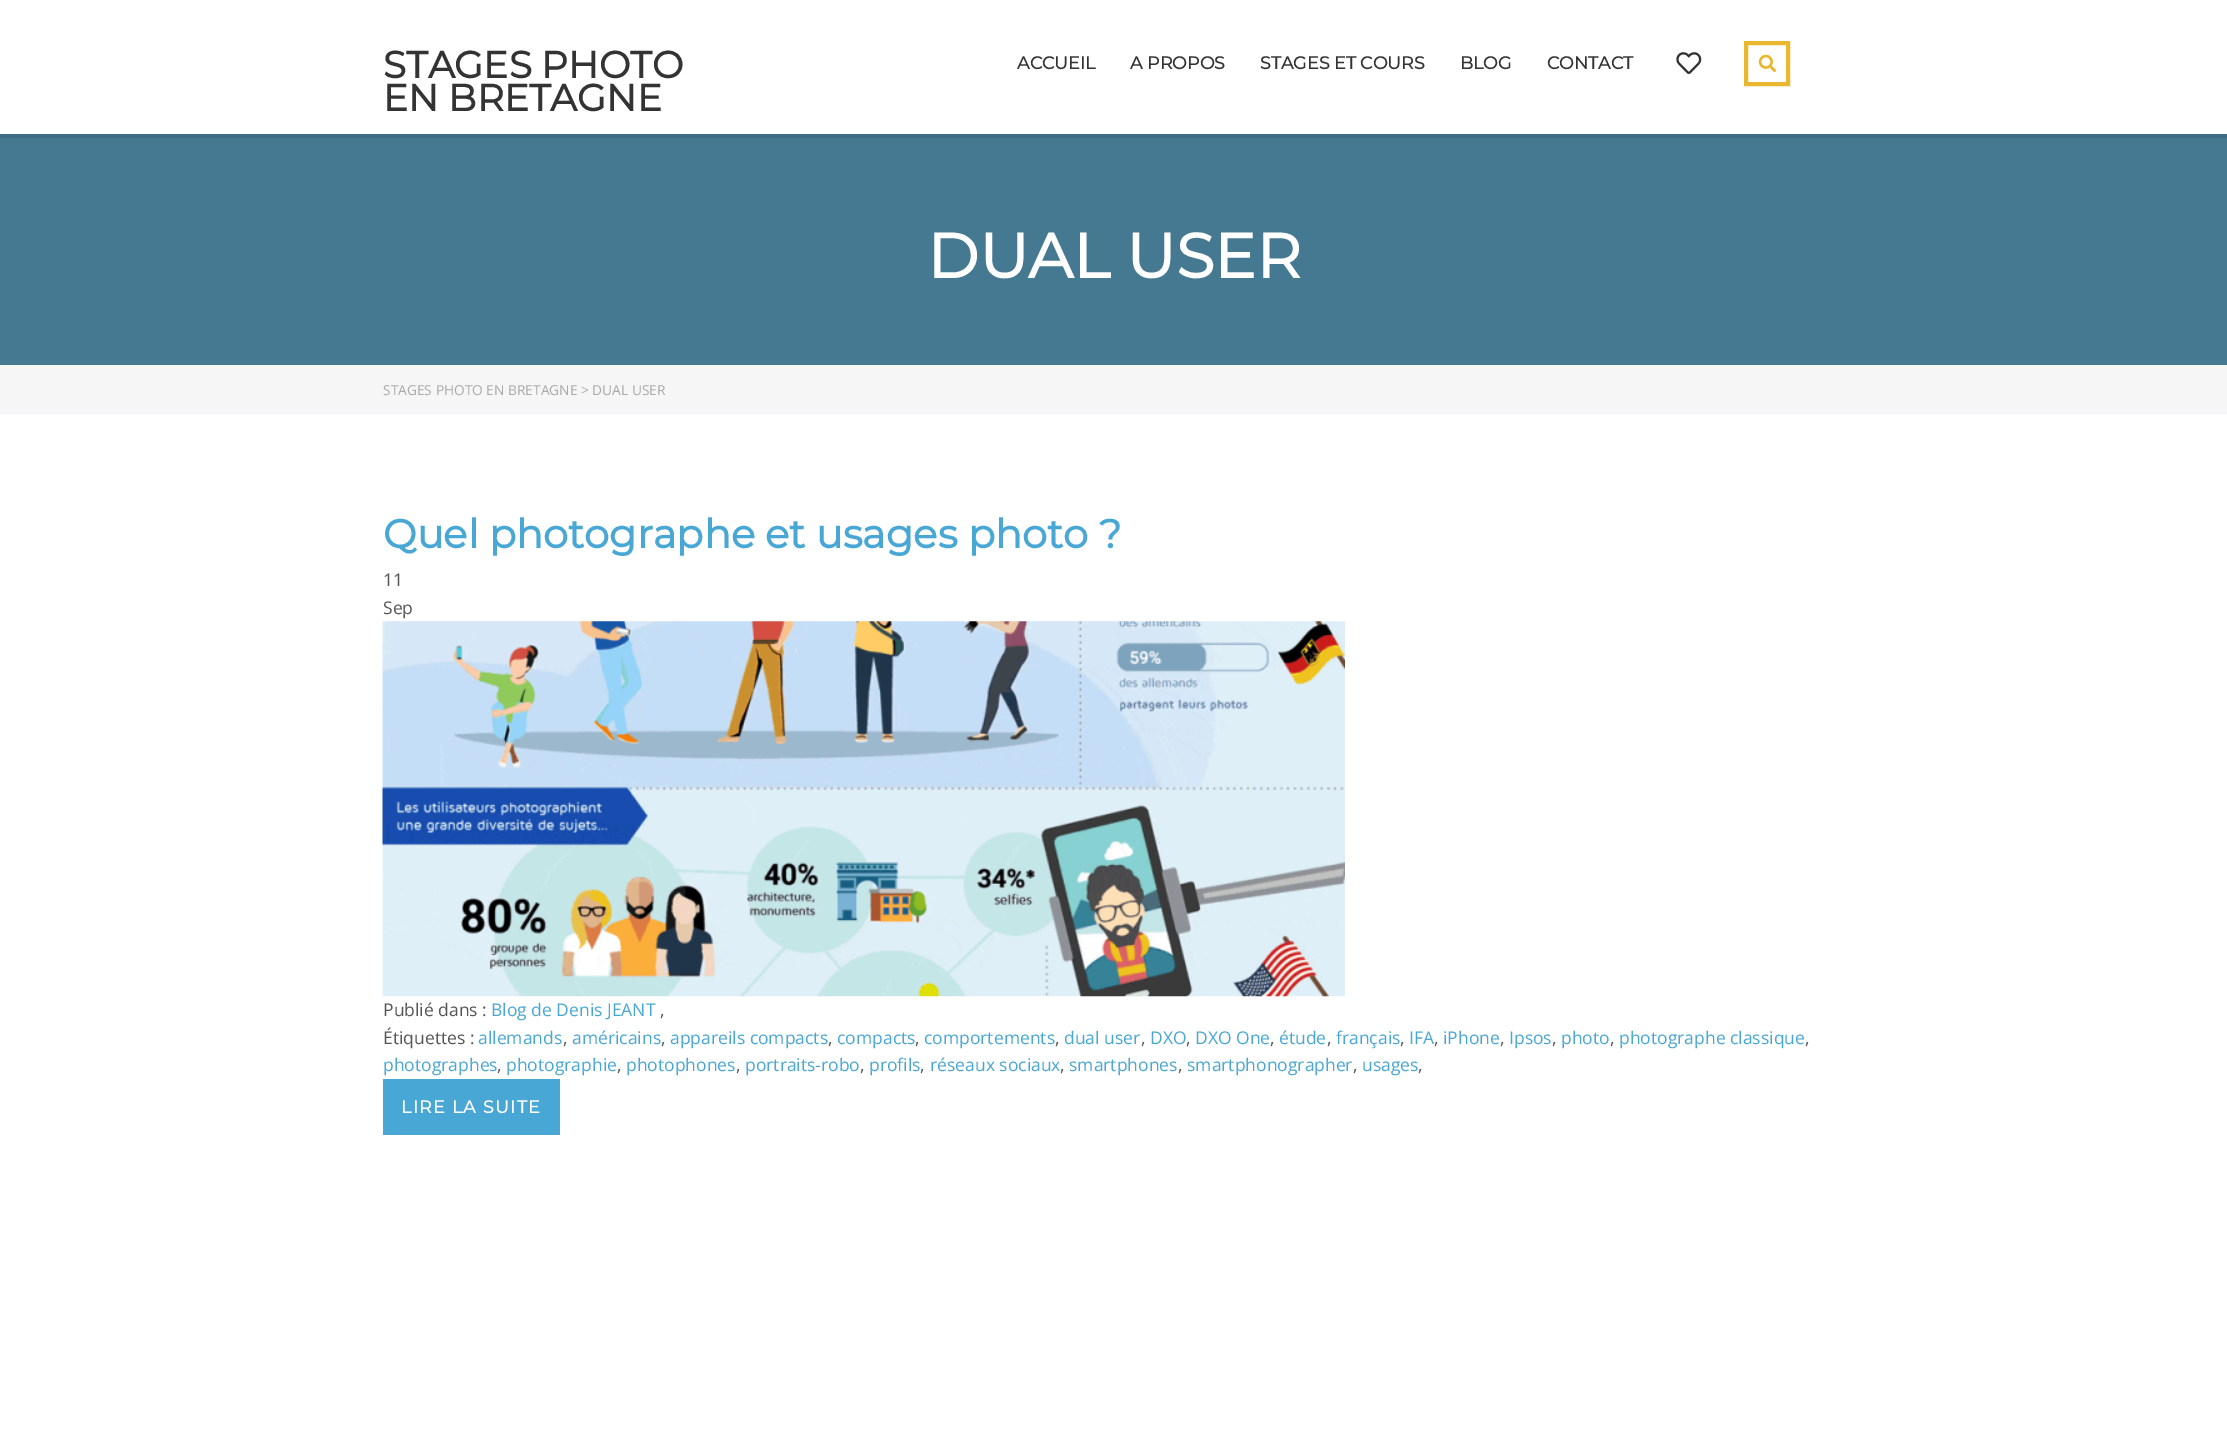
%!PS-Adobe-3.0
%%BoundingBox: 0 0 2227 1443
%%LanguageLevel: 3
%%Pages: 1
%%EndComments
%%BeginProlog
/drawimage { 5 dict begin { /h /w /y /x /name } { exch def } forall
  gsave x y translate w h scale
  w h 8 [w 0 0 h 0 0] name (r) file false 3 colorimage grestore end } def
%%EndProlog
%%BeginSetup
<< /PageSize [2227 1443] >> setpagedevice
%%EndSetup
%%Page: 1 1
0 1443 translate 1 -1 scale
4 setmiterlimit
1 setgray
0 0 2227 1443 rectfill
(images/1.raw) 1676 52 26 22 drawimage
0.918 0.722 0.188 setrgbcolor
4 setlinewidth
1746 43 42 41 rectstroke
(images/2.raw) 1758 54 19 19 drawimage
0.243 0.427 0.514 setrgbcolor
0 134 2227 4 rectfill
0.271 0.475 0.573 setrgbcolor
0 138 2227 227 rectfill
0.965 setgray
0 365 2227 48 rectfill
0.941 0.949 0.961 setrgbcolor
0 413 2227 1 rectfill
(images/3.raw) 382 621 963 376 drawimage
0.282 0.655 0.831 setrgbcolor
383 1079 177 56 rectfill
/Montserrat-Bold [37.5 0 0 -37.5 0 0] selectfont
0.2 setgray
383 78 moveto (STAGES PHOTO) show
383 111 moveto (EN BRETAGNE) show
/Montserrat-Bold [17.5 0 0 -17.5 0 0] selectfont
1017 69 moveto (ACCUEIL) show
1130 69 moveto (A PROPOS) show
1260 69 moveto (STAGES ET COURS) show
1460 69 moveto (BLOG) show
1547 69 moveto (CONTACT) show
/Montserrat-Bold [62.5 0 0 -62.5 0 0] selectfont
1 setgray
927 278 moveto (DUAL USER) show
/OpenSans-Regular [13.75 0 0 -13.75 0 0] selectfont
0.667 setgray
383 395 moveto (STAGES PHOTO EN BRETAGNE > DUAL USER) show
/Montserrat-Bold [40 0 0 -40 0 0] selectfont
0.282 0.655 0.831 setrgbcolor
383 548 moveto (Quel photographe et usages photo ?) show
/OpenSans-Regular [17.5 0 0 -17.5 0 0] selectfont
0.333 setgray
383 586 moveto (11) show
383 614 moveto (Sep) show
383 1016 moveto (Publié dans :) show
0.282 0.655 0.831 setrgbcolor
491 1016 moveto (Blog de Denis JEANT) show
0.333 setgray
660 1016 moveto (,) show
383 1044 moveto (Étiquettes :) show
0.282 0.655 0.831 setrgbcolor
478 1044 moveto (allemands) show
0.333 setgray
563 1044 moveto (,) show
0.282 0.655 0.831 setrgbcolor
572 1044 moveto (américains) show
0.333 setgray
661 1044 moveto (,) show
0.282 0.655 0.831 setrgbcolor
670 1044 moveto (appareils compacts) show
0.333 setgray
828 1044 moveto (,) show
0.282 0.655 0.831 setrgbcolor
837 1044 moveto (compacts) show
0.333 setgray
915 1044 moveto (,) show
0.282 0.655 0.831 setrgbcolor
924 1044 moveto (comportements) show
0.333 setgray
1055 1044 moveto (,) show
0.282 0.655 0.831 setrgbcolor
1064 1044 moveto (dual user) show
0.333 setgray
1141 1044 moveto (,) show
0.282 0.655 0.831 setrgbcolor
1150 1044 moveto (DXO) show
0.333 setgray
1186 1044 moveto (,) show
0.282 0.655 0.831 setrgbcolor
1195 1044 moveto (DXO One) show
0.333 setgray
1270 1044 moveto (,) show
0.282 0.655 0.831 setrgbcolor
1279 1044 moveto (étude) show
0.333 setgray
1327 1044 moveto (,) show
0.282 0.655 0.831 setrgbcolor
1336 1044 moveto (français) show
0.333 setgray
1400 1044 moveto (,) show
0.282 0.655 0.831 setrgbcolor
1409 1044 moveto (IFA) show
0.333 setgray
1434 1044 moveto (,) show
0.282 0.655 0.831 setrgbcolor
1443 1044 moveto (iPhone) show
0.333 setgray
1500 1044 moveto (,) show
0.282 0.655 0.831 setrgbcolor
1509 1044 moveto (Ipsos) show
0.333 setgray
1552 1044 moveto (,) show
0.282 0.655 0.831 setrgbcolor
1561 1044 moveto (photo) show
0.333 setgray
1610 1044 moveto (,) show
0.282 0.655 0.831 setrgbcolor
1619 1044 moveto (photographe classique) show
0.333 setgray
1805 1044 moveto (,) show
0.282 0.655 0.831 setrgbcolor
383 1071 moveto (photographes) show
0.333 setgray
497 1071 moveto (,) show
0.282 0.655 0.831 setrgbcolor
506 1071 moveto (photographie) show
0.333 setgray
617 1071 moveto (,) show
0.282 0.655 0.831 setrgbcolor
626 1071 moveto (photophones) show
0.333 setgray
736 1071 moveto (,) show
0.282 0.655 0.831 setrgbcolor
745 1071 moveto (portraits-robo) show
0.333 setgray
860 1071 moveto (,) show
0.282 0.655 0.831 setrgbcolor
869 1071 moveto (profils) show
0.333 setgray
920 1071 moveto (,) show
0.282 0.655 0.831 setrgbcolor
930 1071 moveto (réseaux sociaux) show
0.333 setgray
1060 1071 moveto (,) show
0.282 0.655 0.831 setrgbcolor
1069 1071 moveto (smartphones) show
0.333 setgray
1178 1071 moveto (,) show
0.282 0.655 0.831 setrgbcolor
1187 1071 moveto (smartphonographer) show
0.333 setgray
1353 1071 moveto (,) show
0.282 0.655 0.831 setrgbcolor
1362 1071 moveto (usages) show
0.333 setgray
1418 1071 moveto (,) show
/Montserrat-Bold [17.5 0 0 -17.5 0 0] selectfont
1 setgray
401 1113 moveto 1.25 0 (LIRE LA SUITE) ashow
showpage
%%EOF
